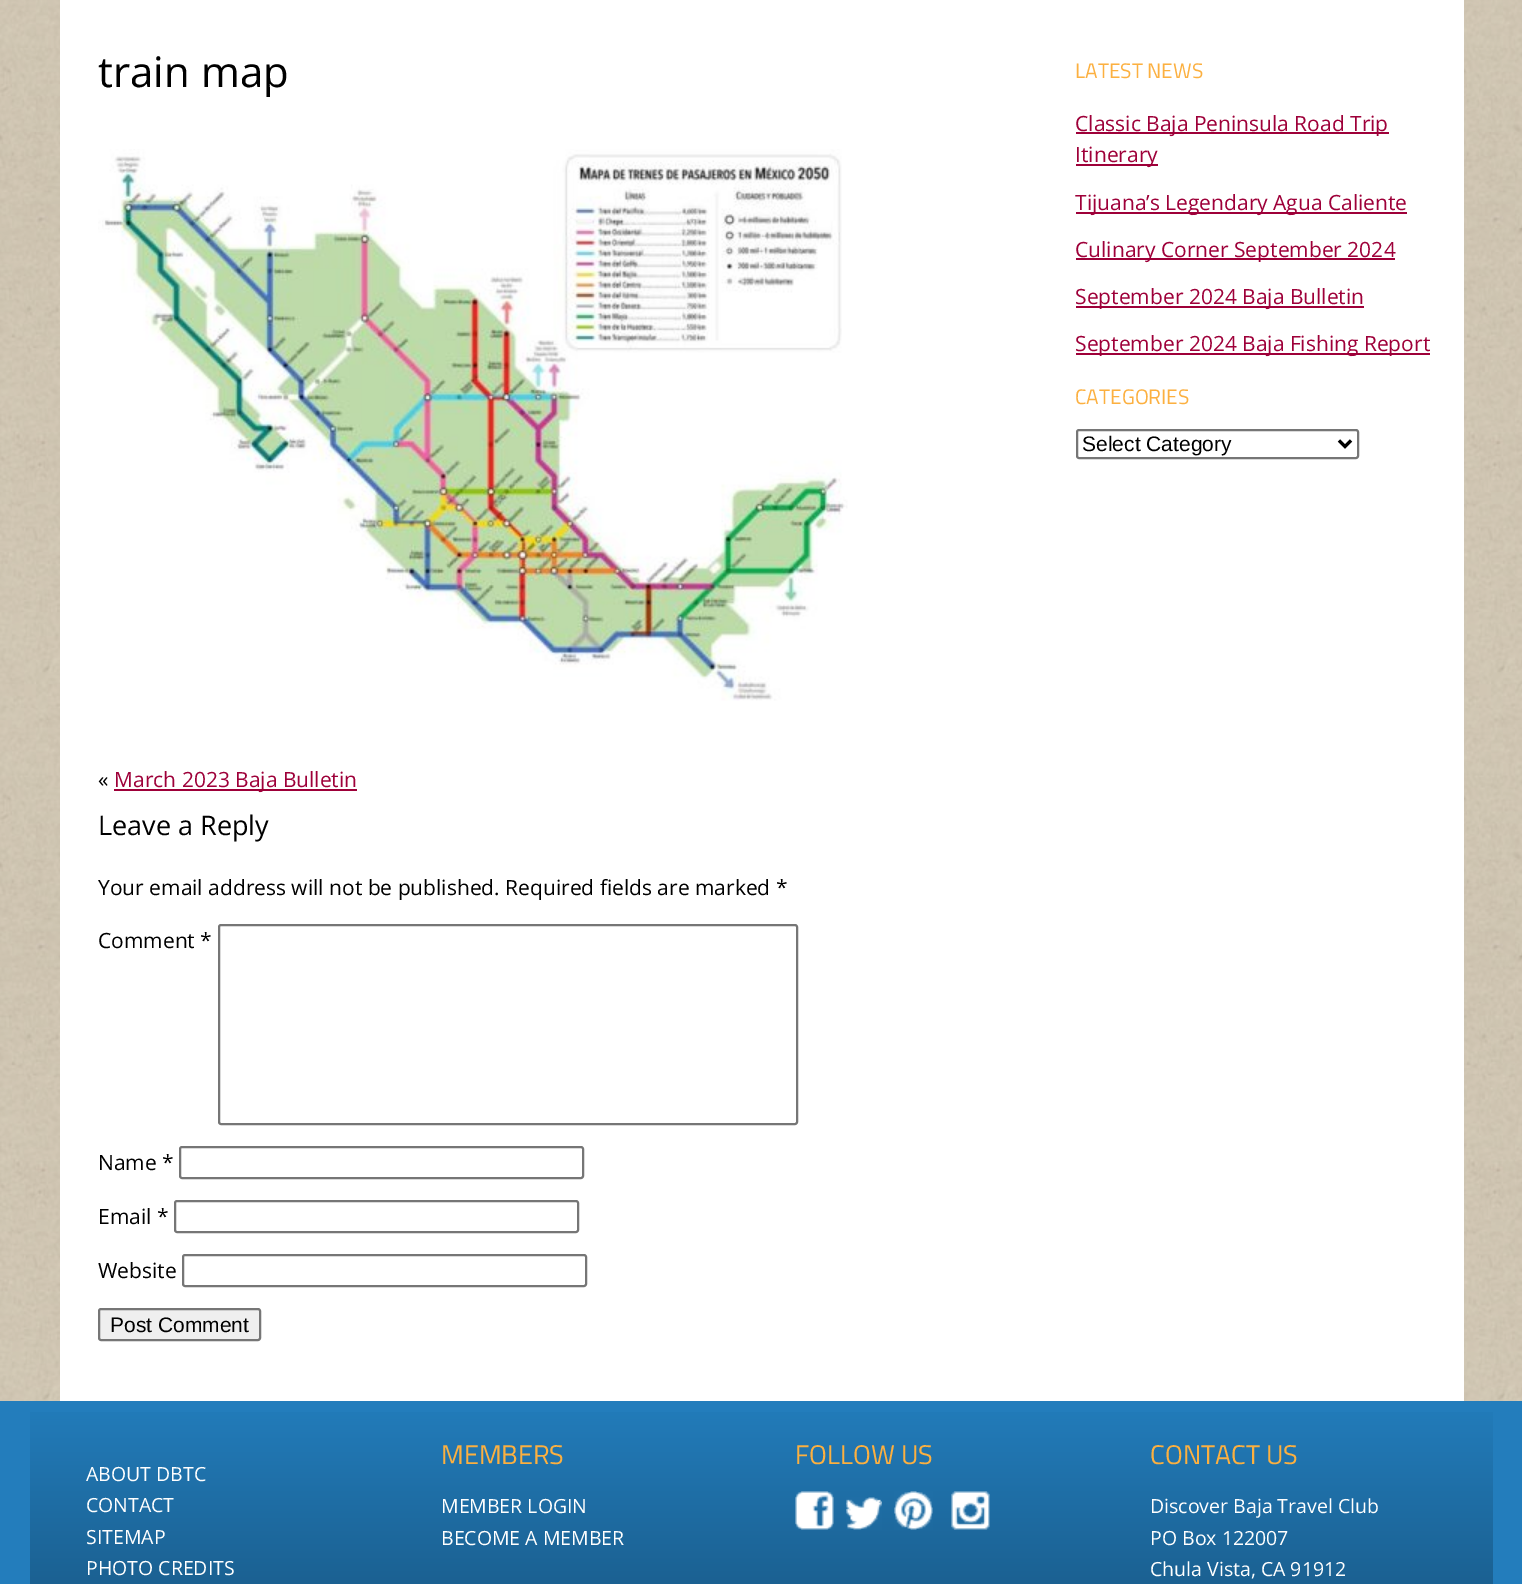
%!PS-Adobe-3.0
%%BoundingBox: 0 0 1522 1584
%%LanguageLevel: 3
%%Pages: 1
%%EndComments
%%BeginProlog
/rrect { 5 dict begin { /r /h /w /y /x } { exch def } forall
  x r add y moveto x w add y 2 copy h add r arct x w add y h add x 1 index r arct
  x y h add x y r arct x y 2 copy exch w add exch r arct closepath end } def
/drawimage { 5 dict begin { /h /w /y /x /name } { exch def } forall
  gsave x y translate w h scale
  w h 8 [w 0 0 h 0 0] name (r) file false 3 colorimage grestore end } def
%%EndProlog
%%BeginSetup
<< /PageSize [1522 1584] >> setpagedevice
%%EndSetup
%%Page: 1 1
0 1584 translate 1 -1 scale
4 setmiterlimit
1 setgray
0 0 1522 1584 rectfill
(images/1.raw) 0 0 1522 1401 drawimage
60 0 1404 1401 rectfill
(images/2.raw) 98 149 750 552 drawimage
0.62 0 0.224 setrgbcolor
114 789 243 2 rectfill
0.463 setgray
2 setlinewidth
219 925 578 199 2 rrect stroke
180 1147 403 31 2 rrect stroke
175 1201 403 31 2 rrect stroke
183 1255 403 31 2 rrect stroke
0.937 setgray
99 1309 161 31 2 rrect gsave fill grestore
0.463 setgray
stroke
0.62 0 0.224 setrgbcolor
1076 132 313 2 rectfill
1076 164 82 2 rectfill
1076 212 331 2 rectfill
1076 258 319 2 rectfill
1076 306 288 2 rectfill
1076 353 354 2 rectfill
0.463 setgray
1077 430 281 28 2 rrect stroke
0 setgray
3 setlinewidth
newpath 1339 440.5 moveto 1345 446.5 lineto 1351 440.5 lineto stroke
0.137 0.49 0.737 setrgbcolor
0 1401 1522 183 rectfill
gsave newpath 30 1412 moveto 1493 1412 lineto 1493 1584 lineto 30 1584 lineto closepath clip newpath
<< /ShadingType 2 /ColorSpace /DeviceRGB /Coords [761 1401 761 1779] /Extend [true true] /Function << /FunctionType 2 /Domain [0 1] /C0 [0.137 0.49 0.737] /C1 [0.075 0.267 0.4] /N 1 >> >> shfill grestore
(images/3.raw) 795 1491 39 39 drawimage
(images/4.raw) 846 1497 36 33 drawimage
(images/5.raw) 894 1491 39 39 drawimage
(images/6.raw) 951 1491 39 39 drawimage
/OpenSans-Regular [42 0 0 -42 0 0] selectfont
0 setgray
98 87 moveto (train map) show
/OpenSans-Regular [21 0 0 -21 0 0] selectfont
98 787 moveto («) show
0.62 0 0.224 setrgbcolor
114 787 moveto (March 2023 Baja Bulletin) show
/OpenSans-Regular [27 0 0 -27 0 0] selectfont
0 setgray
98 835 moveto (Leave a Reply) show
/OpenSans-Regular [21 0 0 -21 0 0] selectfont
98 895 moveto (Your email address will not be published. Required fields are marked *) show
98 948 moveto (Comment *) show
98 1170 moveto (Name *) show
98 1224 moveto (Email *) show
98 1278 moveto (Website) show
/LiberationSans-Regular [21 0 0 -21 0 0] selectfont
110 1332 moveto (Post Comment) show
/TitilliumWeb-Regular [21 0 0 -21 0 0] selectfont
0.988 0.69 0.251 setrgbcolor
1075 78 moveto (LATEST NEWS) show
/OpenSans-Regular [21 0 0 -21 0 0] selectfont
0.62 0 0.224 setrgbcolor
1075 131 moveto (Classic Baja Peninsula Road Trip) show
1075 162 moveto (Itinerary) show
1075 210 moveto (Tijuana’s Legendary Agua Caliente) show
1075 257 moveto (Culinary Corner September 2024) show
1075 304 moveto (September 2024 Baja Bulletin) show
1075 351 moveto (September 2024 Baja Fishing Report) show
/TitilliumWeb-Regular [21 0 0 -21 0 0] selectfont
0.988 0.69 0.251 setrgbcolor
1075 404 moveto (CATEGORIES) show
/LiberationSans-Regular [21 0 0 -21 0 0] selectfont
0 setgray
1082 451 moveto (Select Category) show
/OpenSans-Regular [19.5 0 0 -19.5 0 0] selectfont
1 setgray
86 1481 moveto (ABOUT DBTC) show
86 1512 moveto (CONTACT) show
86 1544 moveto (SITEMAP) show
86 1575 moveto (PHOTO CREDITS) show
/TitilliumWeb-Regular [27 0 0 -27 0 0] selectfont
0.988 0.69 0.251 setrgbcolor
441 1464 moveto (MEMBERS) show
/OpenSans-Regular [19.5 0 0 -19.5 0 0] selectfont
1 setgray
441 1513 moveto (MEMBER LOGIN) show
441 1545 moveto (BECOME A MEMBER) show
/TitilliumWeb-Regular [27 0 0 -27 0 0] selectfont
0.988 0.69 0.251 setrgbcolor
795 1464 moveto (FOLLOW US) show
1150 1464 moveto (CONTACT US) show
/OpenSans-Regular [19.5 0 0 -19.5 0 0] selectfont
1 setgray
1150 1513 moveto (Discover Baja Travel Club) show
1150 1545 moveto (PO Box 122007) show
1150 1576 moveto (Chula Vista, CA 91912) show
showpage
%%EOF
